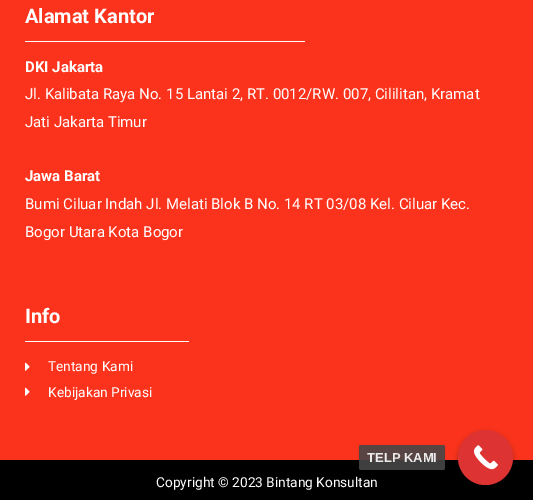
%!PS-Adobe-3.0
%%BoundingBox: 0 0 533 500
%%LanguageLevel: 3
%%Pages: 1
%%EndComments
%%BeginProlog
/setalpha { dup .setfillconstantalpha .setstrokeconstantalpha } def
/rrect { 5 dict begin { /r /h /w /y /x } { exch def } forall
  x r add y moveto x w add y 2 copy h add r arct x w add y h add x 1 index r arct
  x y h add x y r arct x y 2 copy exch w add exch r arct closepath end } def
/softshadow { 12 dict begin { /a /b /q /h /w /y /x } { exch def } forall gsave /was 0 def
  9 -2 -9 { dup b mul 4 div /e exch def 1 sub .425 mul 2.718 exch exp 1 add a .99 .min exch div /now exch def
    1 1 now sub 1 was sub div sub setalpha /was now def
    w h .min e 2 mul add 0 gt { x e sub y e sub w e 2 mul add h e 2 mul add
      q e add b .6 mul add w h .min 2 div e add .min 0 .max rrect fill } if } for grestore end } def
/drawimage { 5 dict begin { /h /w /y /x /name } { exch def } forall
  gsave x y translate w h scale
  w h 8 [w 0 0 h 0 0] name (r) file false 3 colorimage grestore end } def
%%EndProlog
%%BeginSetup
<< /PageSize [533 500] /PageUsesTransparency true >> setpagedevice
%%EndSetup
%%Page: 1 1
0 .pushpdf14devicefilter
0 500 translate 1 -1 scale
4 setmiterlimit
0.984 0.2 0.11 setrgbcolor
0 0 533 500 rectfill
1 setgray
25 41 280 1 rectfill
25 341 164 1 rectfill
(images/1.raw) 25 362 5 9 drawimage
(images/1.raw) 25 387 5 9 drawimage
0 setgray
0 460 533 40 rectfill
458 433 55 55 27.5 3 0.3 softshadow
0.867 0.2 0.2 setrgbcolor
newpath 485.5 457.5 27.5 0 360 arc closepath fill
(images/2.raw) 473 445 25 25 drawimage
gsave
newpath 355 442 moveto 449 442 lineto 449 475 lineto 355 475 lineto closepath 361 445 moveto 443 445 lineto 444 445 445 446 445 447 curveto 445 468 lineto 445 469 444 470 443 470 curveto 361 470 lineto 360 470 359 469 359 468 curveto 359 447 lineto 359 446 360 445 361 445 curveto closepath eoclip newpath
0 setgray
359 446 86 25 2 1 0.15 softshadow
grestore
0.9 setalpha
0.275 setgray
359 445 86 25 2 rrect fill
/Roboto-Bold [20 0 0 -20 0 0] selectfont
1 setalpha
1 setgray
25 23 moveto (Alamat Kantor) show
/Roboto-Bold [15 0 0 -15 0 0] selectfont
25 72 moveto (DKI Jakarta) show
/Roboto-Regular [15 0 0 -15 0 0] selectfont
25 99 moveto (Jl. Kalibata Raya No. 15 Lantai 2, RT. 0012/RW. 007, Cililitan, Kramat) show
25 127 moveto (Jati Jakarta Timur) show
/Roboto-Bold [15 0 0 -15 0 0] selectfont
25 181 moveto (Jawa Barat) show
/Roboto-Regular [15 0 0 -15 0 0] selectfont
25 209 moveto (Bumi Ciluar Indah Jl. Melati Blok B No. 14 RT 03/08 Kel. Ciluar Kec.) show
25 237 moveto (Bogor Utara Kota Bogor) show
/Roboto-Bold [20 0 0 -20 0 0] selectfont
25 323 moveto (Info) show
/Roboto-Regular [13.7 0 0 -13.7 0 0] selectfont
48 371 moveto (Tentang Kami) show
48 397 moveto (Kebijakan Privasi) show
156 487 moveto (Copyright © 2023 Bintang Konsultan) show
/LiberationSans-Bold [13 0 0 -13 0 0] selectfont
0.925 setgray
367 462 moveto (TELP KAMI) show
.poppdf14devicefilter showpage
%%EOF
